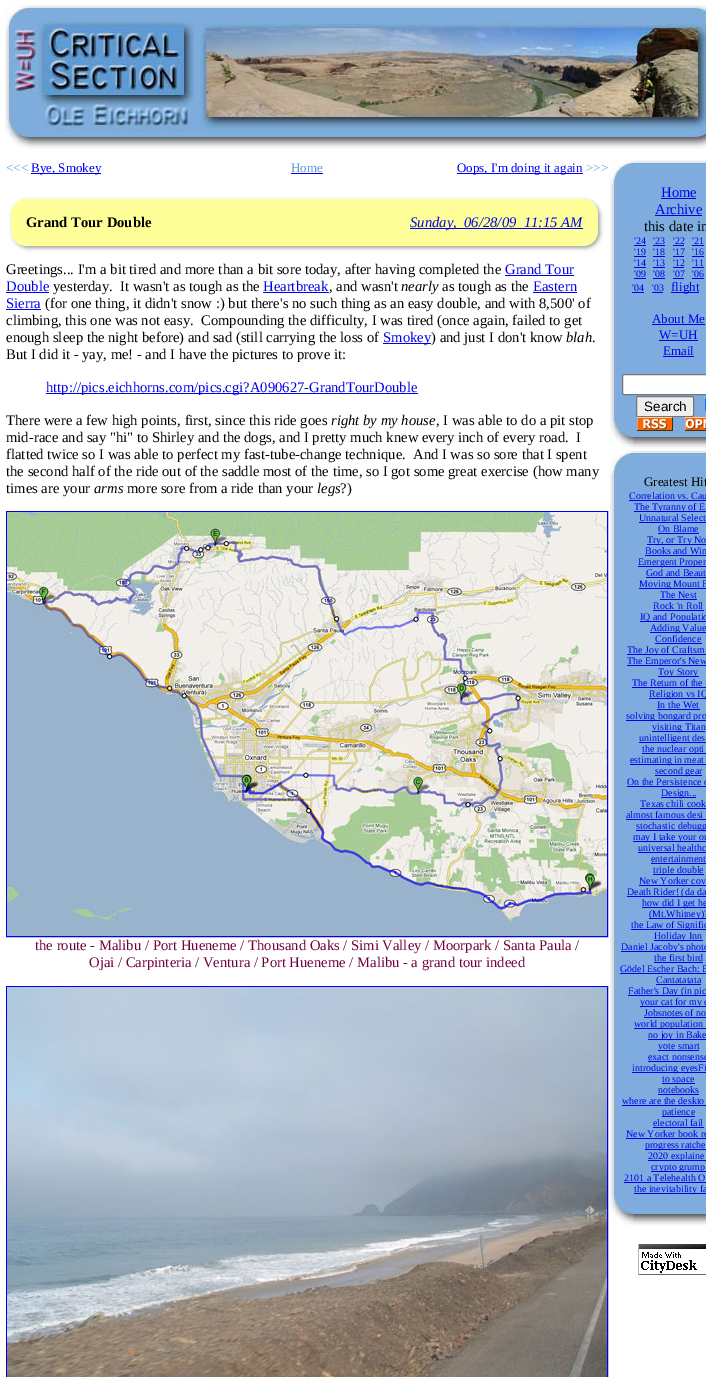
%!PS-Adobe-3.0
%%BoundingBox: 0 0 706 1377
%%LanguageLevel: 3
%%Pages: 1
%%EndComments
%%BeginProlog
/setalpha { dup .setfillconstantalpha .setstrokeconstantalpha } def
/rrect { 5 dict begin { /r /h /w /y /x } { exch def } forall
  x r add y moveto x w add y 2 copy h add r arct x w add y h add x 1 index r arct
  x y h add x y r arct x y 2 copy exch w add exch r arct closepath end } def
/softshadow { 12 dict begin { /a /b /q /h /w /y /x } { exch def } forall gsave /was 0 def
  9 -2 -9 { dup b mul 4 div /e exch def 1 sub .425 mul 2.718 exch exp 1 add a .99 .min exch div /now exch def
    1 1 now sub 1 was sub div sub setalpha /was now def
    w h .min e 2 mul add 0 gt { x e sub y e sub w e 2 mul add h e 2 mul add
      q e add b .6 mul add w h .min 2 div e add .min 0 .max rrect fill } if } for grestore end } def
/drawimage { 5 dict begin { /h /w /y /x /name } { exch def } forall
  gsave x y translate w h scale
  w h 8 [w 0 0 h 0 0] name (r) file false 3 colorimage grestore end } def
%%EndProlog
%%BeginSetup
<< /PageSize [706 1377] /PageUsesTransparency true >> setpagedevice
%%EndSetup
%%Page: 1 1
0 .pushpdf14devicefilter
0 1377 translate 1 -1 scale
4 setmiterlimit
1 setgray
0 0 706 1377 rectfill
(images/1.raw) 5 5 189 144 drawimage
(images/2.raw) 194 5 4 144 drawimage
(images/3.raw) 198 5 508 144 drawimage
0 0 0.933 setrgbcolor
31 173 70 1 rectfill
291 173 32 1 rectfill
457 173 126 1 rectfill
0.627 setgray
13 201 587 47 15 2 1 softshadow
1 1 0.6 setrgbcolor
11 199 587 47 15 rrect fill
0 0 0.933 setrgbcolor
410 228 173 1 rectfill
505 275 69 1 rectfill
6 292 43 1 rectfill
263 292 66 1 rectfill
533 292 44 1 rectfill
6 309 35 1 rectfill
383 343 48 1 rectfill
46 393 372 1 rectfill
6.5 511.5 601 425 rectstroke
(images/4.raw) 7 512 600 424 drawimage
6.5 986.5 601 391 rectstroke
(images/5.raw) 7 987 600 390 drawimage
(images/6.raw) 610 160 24 24 drawimage
(images/7.raw) 634 160 72 24 drawimage
(images/8.raw) 610 184 5 233 drawimage
0.494 0.675 0.871 setrgbcolor
615 184 91 233 rectfill
0 0 0.933 setrgbcolor
661 198 35 1 rectfill
655 215 47 1 rectfill
634 245 12 1 rectfill
653 245 12 1 rectfill
673 245 11 1 rectfill
692 245 12 1 rectfill
634 256 12 1 rectfill
653 256 12 1 rectfill
673 256 11 1 rectfill
692 256 12 1 rectfill
634 267 12 1 rectfill
653 267 12 1 rectfill
673 267 11 1 rectfill
692 267 12 1 rectfill
634 278 12 1 rectfill
653 278 12 1 rectfill
673 278 11 1 rectfill
692 278 12 1 rectfill
632 292 12 1 rectfill
652 292 11 1 rectfill
671 292 28 1 rectfill
652 324 53 1 rectfill
659 340 39 1 rectfill
663 356 31 1 rectfill
1 setgray
622.5 374.5 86 20 1.5 rrect gsave fill grestore
0.463 setgray
stroke
0.937 setgray
636.5 396.5 57 20 1.5 rrect gsave fill grestore
0.463 setgray
stroke
0 0.459 1 setrgbcolor
705 398 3 13 2 rrect fill
(images/9.raw) 610 417 24 32 drawimage
(images/10.raw) 634 417 72 32 drawimage
(images/11.raw) 637 417 36 14 drawimage
(images/12.raw) 685 417 21 14 drawimage
(images/6.raw) 610 450 24 24 drawimage
(images/7.raw) 634 450 72 24 drawimage
(images/13.raw) 610 474 5 720 drawimage
0.494 0.675 0.871 setrgbcolor
615 474 91 720 rectfill
0 0 0.933 setrgbcolor
629 500 77 1 rectfill
634 511 72 1 rectfill
639 522 67 1 rectfill
658 533 41 1 rectfill
647 544 59 1 rectfill
645 555 61 1 rectfill
638 566 68 1 rectfill
646 577 60 1 rectfill
639 588 67 1 rectfill
660 599 37 1 rectfill
653 610 51 1 rectfill
640 621 66 1 rectfill
650 632 56 1 rectfill
655 643 47 1 rectfill
627 654 79 1 rectfill
627 665 79 1 rectfill
658 676 41 1 rectfill
632 687 74 1 rectfill
649 698 57 1 rectfill
657 709 43 1 rectfill
626 720 80 1 rectfill
652 731 53 1 rectfill
639 742 67 1 rectfill
642 753 64 1 rectfill
630 764 76 1 rectfill
655 775 47 1 rectfill
627 786 79 1 rectfill
661 797 35 1 rectfill
640 808 66 1 rectfill
626 819 80 1 rectfill
636 830 70 1 rectfill
633 841 73 1 rectfill
638 852 68 1 rectfill
651 863 55 1 rectfill
653 874 51 1 rectfill
639 885 67 1 rectfill
627 896 79 1 rectfill
642 907 64 1 rectfill
649 918 57 1 rectfill
631 929 75 1 rectfill
654 940 49 1 rectfill
621 951 85 1 rectfill
654 962 49 1 rectfill
620 973 86 1 rectfill
656 984 45 1 rectfill
628 995 78 1 rectfill
640 1006 66 1 rectfill
644 1017 62 1 rectfill
634 1028 72 1 rectfill
648 1039 58 1 rectfill
658 1050 41 1 rectfill
648 1061 58 1 rectfill
632 1072 74 1 rectfill
662 1083 33 1 rectfill
658 1094 41 1 rectfill
622 1105 84 1 rectfill
662 1116 33 1 rectfill
653 1127 51 1 rectfill
626 1138 80 1 rectfill
645 1149 61 1 rectfill
648 1160 58 1 rectfill
651 1171 55 1 rectfill
624 1182 82 1 rectfill
634 1193 72 1 rectfill
(images/9.raw) 610 1194 24 32 drawimage
(images/10.raw) 634 1194 72 32 drawimage
(images/14.raw) 638 1244 68 31 drawimage
/LiberationSerif-Regular [13 0 0 -13 0 0] selectfont
0.373 0.604 0.824 setrgbcolor
6 172 moveto (<<<) show
0 0 0.933 setrgbcolor
31 172 moveto (Bye, Smokey) show
0.373 0.604 0.824 setrgbcolor
291 172 moveto (Home) show
0 0 0.933 setrgbcolor
457 172 moveto (Oops, I'm doing it again) show
0.373 0.604 0.824 setrgbcolor
586 172 moveto (>>>) show
/LiberationSerif-Bold [14.65 0 0 -14.65 0 0] selectfont
0 setgray
26 227 moveto (Grand Tour Double) show
/LiberationSerif-Italic [14.65 0 0 -14.65 0 0] selectfont
0 0 0.933 setrgbcolor
410 227 moveto (Sunday,  06/28/09  11:15 AM) show
/LiberationSerif-Regular [14.65 0 0 -14.65 0 0] selectfont
0 setgray
6 274 moveto (Greetings... I'm a bit tired and more than a bit sore today, after having completed the) show
0 0 0.933 setrgbcolor
505 274 moveto (Grand Tour) show
6 291 moveto (Double) show
0 setgray
53 291 moveto (yesterday.  It wasn't as tough as the) show
0 0 0.933 setrgbcolor
263 291 moveto (Heartbreak) show
0 setgray
329 291 moveto (, and wasn't) show
/LiberationSerif-Italic [14.65 0 0 -14.65 0 0] selectfont
401 291 moveto (nearly) show
/LiberationSerif-Regular [14.65 0 0 -14.65 0 0] selectfont
442 291 moveto (as tough as the) show
0 0 0.933 setrgbcolor
533 291 moveto (Eastern) show
6 308 moveto (Sierra) show
0 setgray
45 308 moveto (\(for one thing, it didn't snow :\) but there's no such thing as an easy double, and with 8,500' of) show
6 325 moveto (climbing, this one was not easy.  Compounding the difficulty, I was tired \(once again, failed to get) show
6 342 moveto (enough sleep the night before\) and sad \(still carrying the loss of) show
0 0 0.933 setrgbcolor
383 342 moveto (Smokey) show
0 setgray
431 342 moveto (\) and just I don't know) show
/LiberationSerif-Italic [14.65 0 0 -14.65 0 0] selectfont
566 342 moveto (blah) show
/LiberationSerif-Regular [14.65 0 0 -14.65 0 0] selectfont
592 342 moveto (.) show
6 359 moveto (But I did it - yay, me! - and I have the pictures to prove it:) show
0 0 0.933 setrgbcolor
46 392 moveto (http://pics.eichhorns.com/pics.cgi?A090627-GrandTourDouble) show
0 setgray
6 425 moveto (There were a few high points, first, since this ride goes) show
/LiberationSerif-Italic [14.65 0 0 -14.65 0 0] selectfont
331 425 moveto (right by my house) show
/LiberationSerif-Regular [14.65 0 0 -14.65 0 0] selectfont
436 425 moveto (, I was able to do a pit stop) show
6 442 moveto (mid-race and say "hi" to Shirley and the dogs, and I pretty much knew every inch of every road.  I) show
6 459 moveto (flatted twice so I was able to perfect my fast-tube-change technique.  And I was so sore that I spent) show
6 476 moveto (the second half of the ride out of the saddle most of the time, so I got some great exercise \(how many) show
6 493 moveto (times are your) show
/LiberationSerif-Italic [14.65 0 0 -14.65 0 0] selectfont
94 493 moveto (arms) show
/LiberationSerif-Regular [14.65 0 0 -14.65 0 0] selectfont
127 493 moveto (more sore from a ride than your) show
/LiberationSerif-Italic [14.65 0 0 -14.65 0 0] selectfont
317 493 moveto (legs) show
/LiberationSerif-Regular [14.65 0 0 -14.65 0 0] selectfont
340 493 moveto (?\)) show
0.443 0 0.22 setrgbcolor
35 950 moveto (the route - Malibu / Port Hueneme / Thousand Oaks / Simi Valley / Moorpark / Santa Paula /) show
89 967 moveto (Ojai / Carpinteria / Ventura / Port Hueneme / Malibu - a grand tour indeed) show
0 0 0.933 setrgbcolor
661 197 moveto (Home) show
655 214 moveto (Archive) show
0 setgray
644 231 moveto (this date in) show
/LiberationSerif-Regular [10 0 0 -10 0 0] selectfont
0 0 0.933 setrgbcolor
634 244 moveto ('24) show
653 244 moveto ('23) show
673 244 moveto ('22) show
692 244 moveto ('21) show
634 255 moveto ('19) show
653 255 moveto ('18) show
673 255 moveto ('17) show
692 255 moveto ('16) show
634 266 moveto ('14) show
653 266 moveto ('13) show
673 266 moveto ('12) show
692 266 moveto ('11) show
634 277 moveto ('09) show
653 277 moveto ('08) show
673 277 moveto ('07) show
692 277 moveto ('06) show
632 291 moveto ('04) show
652 291 moveto ('03) show
/LiberationSerif-Regular [13 0 0 -13 0 0] selectfont
671 291 moveto (flight) show
652 323 moveto (About Me) show
659 339 moveto (W=UH) show
663 355 moveto (Email) show
/LiberationSans-Regular [13.5 0 0 -13.5 0 0] selectfont
0 setgray
644 411 moveto (Search) show
/LiberationSerif-Regular [13 0 0 -13 0 0] selectfont
644 486 moveto (Greatest Hit) show
/LiberationSerif-Regular [10 0 0 -10 0 0] selectfont
0 0 0.933 setrgbcolor
629 499 moveto (Correlation vs. Cau) show
634 510 moveto (The Tyranny of E) show
639 521 moveto (Unnatural Select) show
658 532 moveto (On Blame) show
647 543 moveto (Try, or Try No) show
645 554 moveto (Books and Win) show
638 565 moveto (Emergent Proper) show
646 576 moveto (God and Beaut) show
639 587 moveto (Moving Mount F) show
660 598 moveto (The Nest) show
653 609 moveto (Rock 'n Roll) show
640 620 moveto (IQ and Populatio) show
650 631 moveto (Adding Value) show
655 642 moveto (Confidence) show
627 653 moveto (The Joy of Craftsm) show
627 664 moveto (The Emperor's New) show
658 675 moveto (Toy Story) show
632 686 moveto (The Return of the) show
649 697 moveto (Religion vs IQ) show
657 708 moveto (In the Wet) show
626 719 moveto (solving bongard pro) show
652 730 moveto (visiting Titan) show
639 741 moveto (unintelligent des) show
642 752 moveto (the nuclear opti) show
630 763 moveto (estimating in meat) show
655 774 moveto (second gear) show
627 785 moveto (On the Persistence o) show
661 796 moveto (Design...) show
640 807 moveto (Texas chili cook) show
626 818 moveto (almost famous desi) show
636 829 moveto (stochastic debugg) show
633 840 moveto (may I take your or) show
638 851 moveto (universal healthc) show
651 862 moveto (entertainment) show
653 873 moveto (triple double) show
639 884 moveto (New Yorker cov) show
627 895 moveto (Death Rider! \(da da) show
642 906 moveto (how did I get he) show
649 917 moveto (\(Mt.Whitney\)?) show
631 928 moveto (the Law of Signific) show
654 939 moveto (Holiday Inn) show
621 950 moveto (Daniel Jacoby's photo) show
654 961 moveto (the first bird) show
620 972 moveto (Gödel Escher Bach: B) show
656 983 moveto (Cantatatata) show
628 994 moveto (Father's Day \(in pic) show
640 1005 moveto (your cat for my c) show
644 1016 moveto (Jobsnotes of no) show
634 1027 moveto (world population) show
648 1038 moveto (no joy in Bake) show
658 1049 moveto (vote smart) show
648 1060 moveto (exact nonsense) show
632 1071 moveto (introducing eyesFi) show
662 1082 moveto (to space) show
658 1093 moveto (notebooks) show
622 1104 moveto (where are the deskto) show
662 1115 moveto (patience) show
653 1126 moveto (electoral fail) show
626 1137 moveto (New Yorker book re) show
645 1148 moveto (progress ratche) show
648 1159 moveto (2020 explaine) show
651 1170 moveto (crypto grump) show
624 1181 moveto (2101 a Telehealth O) show
634 1192 moveto (the inevitability fa) show
.poppdf14devicefilter showpage
%%EOF
